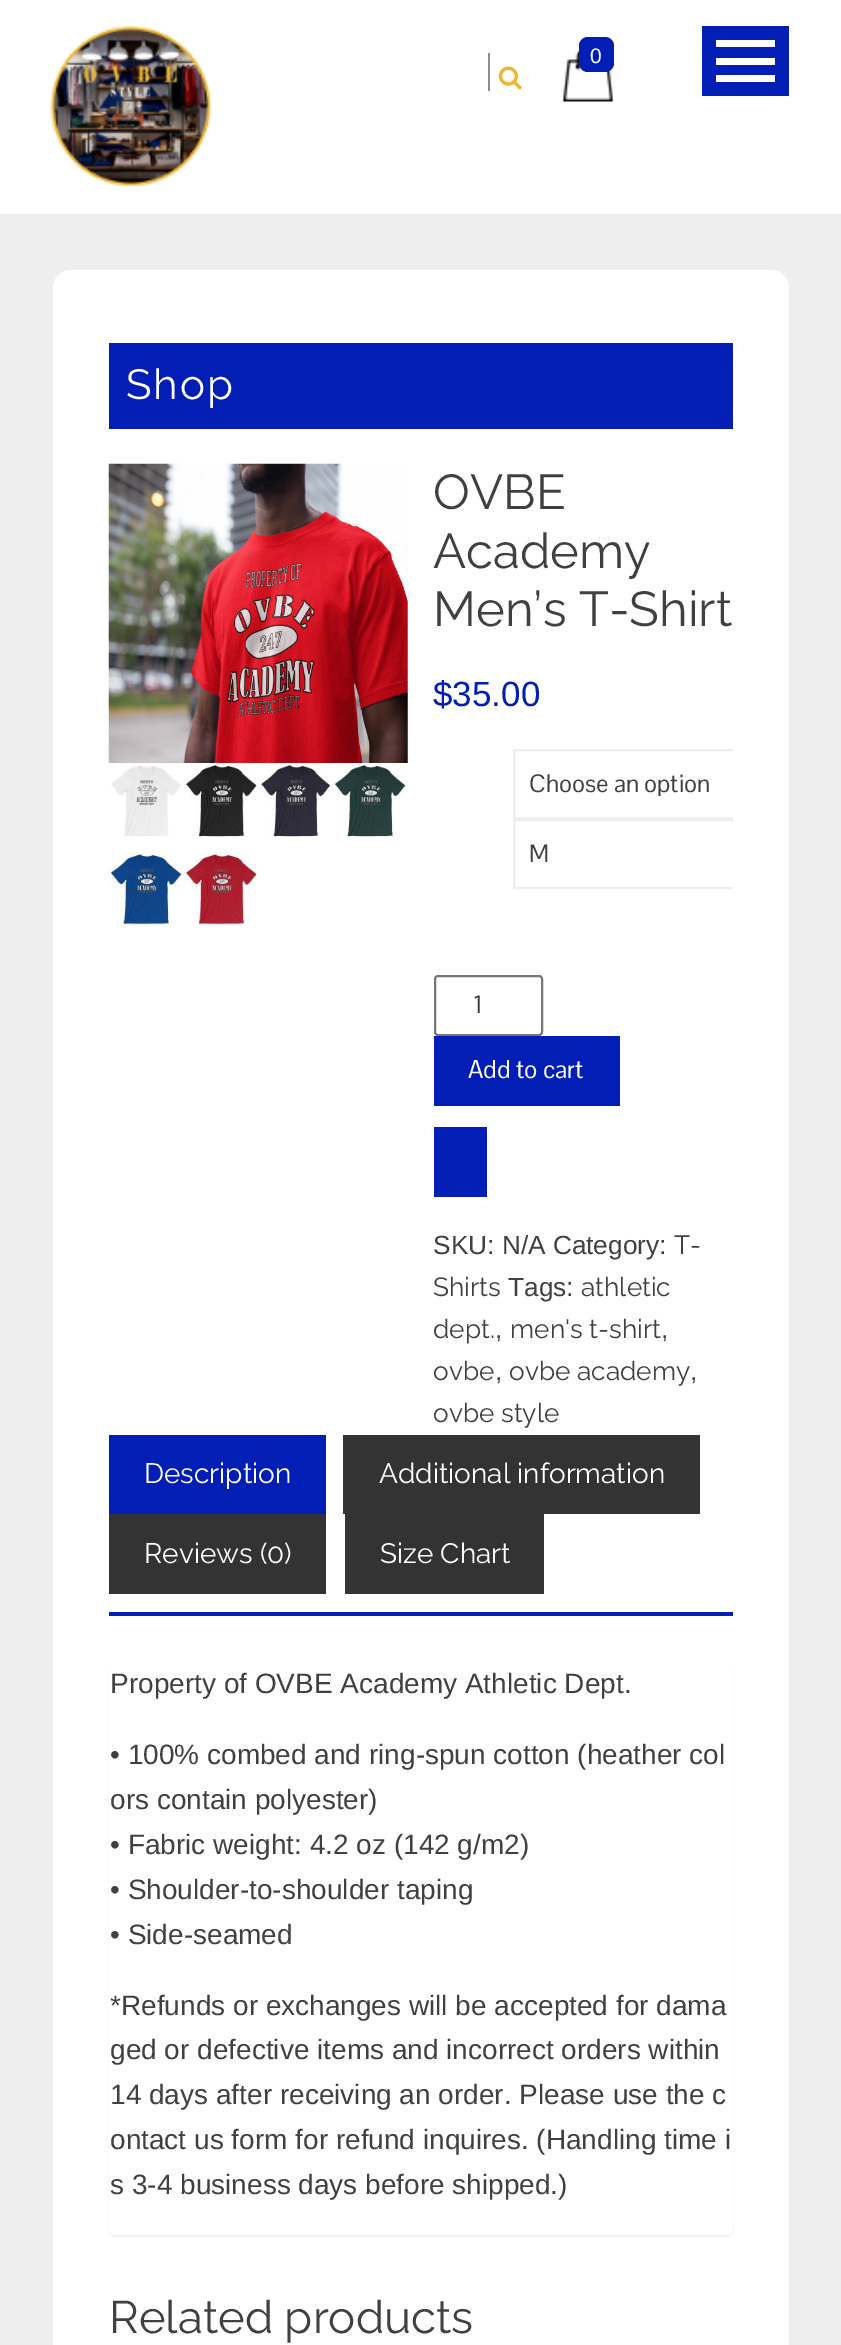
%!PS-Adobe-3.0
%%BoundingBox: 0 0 841 2345
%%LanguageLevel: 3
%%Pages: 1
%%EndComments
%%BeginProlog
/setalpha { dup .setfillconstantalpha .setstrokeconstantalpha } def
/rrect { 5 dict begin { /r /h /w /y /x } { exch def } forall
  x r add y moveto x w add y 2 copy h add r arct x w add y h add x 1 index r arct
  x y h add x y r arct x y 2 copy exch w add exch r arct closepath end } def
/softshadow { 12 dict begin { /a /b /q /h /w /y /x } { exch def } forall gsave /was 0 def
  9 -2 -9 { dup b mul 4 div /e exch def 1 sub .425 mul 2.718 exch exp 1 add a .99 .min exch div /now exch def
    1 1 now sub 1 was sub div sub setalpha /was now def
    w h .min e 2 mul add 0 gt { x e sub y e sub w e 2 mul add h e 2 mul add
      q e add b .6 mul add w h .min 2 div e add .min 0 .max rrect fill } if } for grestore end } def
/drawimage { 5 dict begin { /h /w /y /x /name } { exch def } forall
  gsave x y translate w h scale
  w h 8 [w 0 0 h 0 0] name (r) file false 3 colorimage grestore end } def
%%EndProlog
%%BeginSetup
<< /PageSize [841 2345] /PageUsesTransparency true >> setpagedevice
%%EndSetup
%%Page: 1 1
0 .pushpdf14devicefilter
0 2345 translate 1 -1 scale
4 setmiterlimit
1 setgray
0 0 841 2345 rectfill
(images/1.raw) 50 26 162 162 drawimage
0.557 setgray
488 53 2 38 rectfill
(images/2.raw) 498 66 24 24 drawimage
(images/3.raw) 561 50 53 52 drawimage
0.012 0.118 0.71 setrgbcolor
579 37 35 35 9 rrect fill
702 26 87 70 rectfill
1 setgray
716 40 59 7 rectfill
716 75 59 7 rectfill
716 58 59 7 rectfill
0.933 setgray
0 214 841 2131 rectfill
1 setgray
53 270 736 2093 18 rrect fill
0.012 0.118 0.71 setrgbcolor
109 343 624 86 rectfill
(images/4.raw) 108 463 300 300 drawimage
(images/5.raw) 111 765 70 72 drawimage
(images/6.raw) 184 763 75 75 drawimage
(images/7.raw) 259 763 73 75 drawimage
(images/8.raw) 332 763 75 75 drawimage
(images/9.raw) 109 852 75 74 drawimage
(images/10.raw) 183 852 76 74 drawimage
gsave
109 326 624 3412 rectclip
0.933 setgray
2 setlinewidth
514 750 271 68 rectstroke
514 820 271 68 rectstroke
grestore
0.463 setgray
2 setlinewidth
435 976 107 59 3 rrect stroke
0.012 0.118 0.71 setrgbcolor
434 1036 186 70 rectfill
434 1127 53 70 rectfill
109 1612 624 4 rectfill
109 1435 217 79 rectfill
0.2 setgray
343 1435 357 79 rectfill
109 1514 217 80 rectfill
345 1514 199 80 rectfill
0 setgray
109 1663 624 574 7 1 0.05 softshadow
1 setgray
109 1661 624 574 7 rrect fill
/LiberationSans-Regular [21 0 0 -21 0 0] selectfont
590 63 moveto (0) show
/Raleway-Regular [42 0 0 -42 0 0] selectfont
126 399 moveto 2 0 (Shop) ashow
/Raleway-Regular [49 0 0 -49 0 0] selectfont
0.251 setgray
433 509 moveto (OVBE) show
433 568 moveto (Academy) show
433 626 moveto (Men’s T-Shirt) show
/LiberationSans-Regular [35 0 0 -35 0 0] selectfont
0.012 0.118 0.71 setrgbcolor
433 706 moveto ($35.00) show
gsave
529 772 182 24 rectclip
/PontanoSans-Regular [24.5 0 0 -24.5 0 0] selectfont
0.251 setgray
529 792 moveto (Choose an option) show
grestore
/PontanoSans-Regular [24.5 0 0 -24.5 0 0] selectfont
0.251 setgray
529 862 moveto (M) show
473 1013 moveto (1) show
/PontanoSans-Regular [25 0 0 -25 0 0] selectfont
1 setgray
468 1078 moveto (Add to cart) show
/LiberationSans-Regular [26.25 0 0 -26.25 0 0] selectfont
0.251 setgray
433 1254 moveto (SKU: N/A Category:) show
/Raleway-Regular [26.25 0 0 -26.25 0 0] selectfont
674 1254 moveto (T-) show
433 1296 moveto (Shirts) show
/LiberationSans-Regular [26.25 0 0 -26.25 0 0] selectfont
508 1296 moveto (Tags:) show
/Raleway-Regular [26.25 0 0 -26.25 0 0] selectfont
581 1296 moveto (athletic) show
433 1338 moveto (dept.) show
/LiberationSans-Regular [26.25 0 0 -26.25 0 0] selectfont
495 1338 moveto (,) show
/Raleway-Regular [26.25 0 0 -26.25 0 0] selectfont
510 1338 moveto (men's t-shirt) show
/LiberationSans-Regular [26.25 0 0 -26.25 0 0] selectfont
661 1338 moveto (,) show
/Raleway-Regular [26.25 0 0 -26.25 0 0] selectfont
433 1380 moveto (ovbe) show
/LiberationSans-Regular [26.25 0 0 -26.25 0 0] selectfont
495 1380 moveto (,) show
/Raleway-Regular [26.25 0 0 -26.25 0 0] selectfont
509 1380 moveto (ovbe academy) show
/LiberationSans-Regular [26.25 0 0 -26.25 0 0] selectfont
690 1380 moveto (,) show
/Raleway-Regular [26.25 0 0 -26.25 0 0] selectfont
433 1422 moveto (ovbe style) show
/Raleway-Regular [28 0 0 -28 0 0] selectfont
1 setgray
144 1483 moveto (Description) show
379 1483 moveto (Additional information) show
144 1563 moveto (Reviews \(0\)) show
380 1563 moveto (Size Chart) show
/LiberationSans-Regular [28 0 0 -28 0 0] selectfont
0.251 setgray
110 1693 moveto (Property of OVBE Academy Athletic Dept.) show
110 1764 moveto (• 100% combed and ring-spun cotton \(heather col) show
110 1809 moveto (ors contain polyester\)) show
110 1854 moveto (• Fabric weight: 4.2 oz \(142 g/m2\)) show
110 1899 moveto (• Shoulder-to-shoulder taping) show
110 1944 moveto (• Side-seamed) show
110 2015 moveto (*Refunds or exchanges will be accepted for dama) show
110 2059 moveto (ged or defective items and incorrect orders within) show
110 2104 moveto (14 days after receiving an order. Please use the c) show
110 2149 moveto (ontact us form for refund inquires. \(Handling time i) show
110 2194 moveto (s 3-4 business days before shipped.\)) show
/Raleway-Regular [45.5 0 0 -45.5 0 0] selectfont
109 2333 moveto (Related products) show
.poppdf14devicefilter showpage
%%EOF
